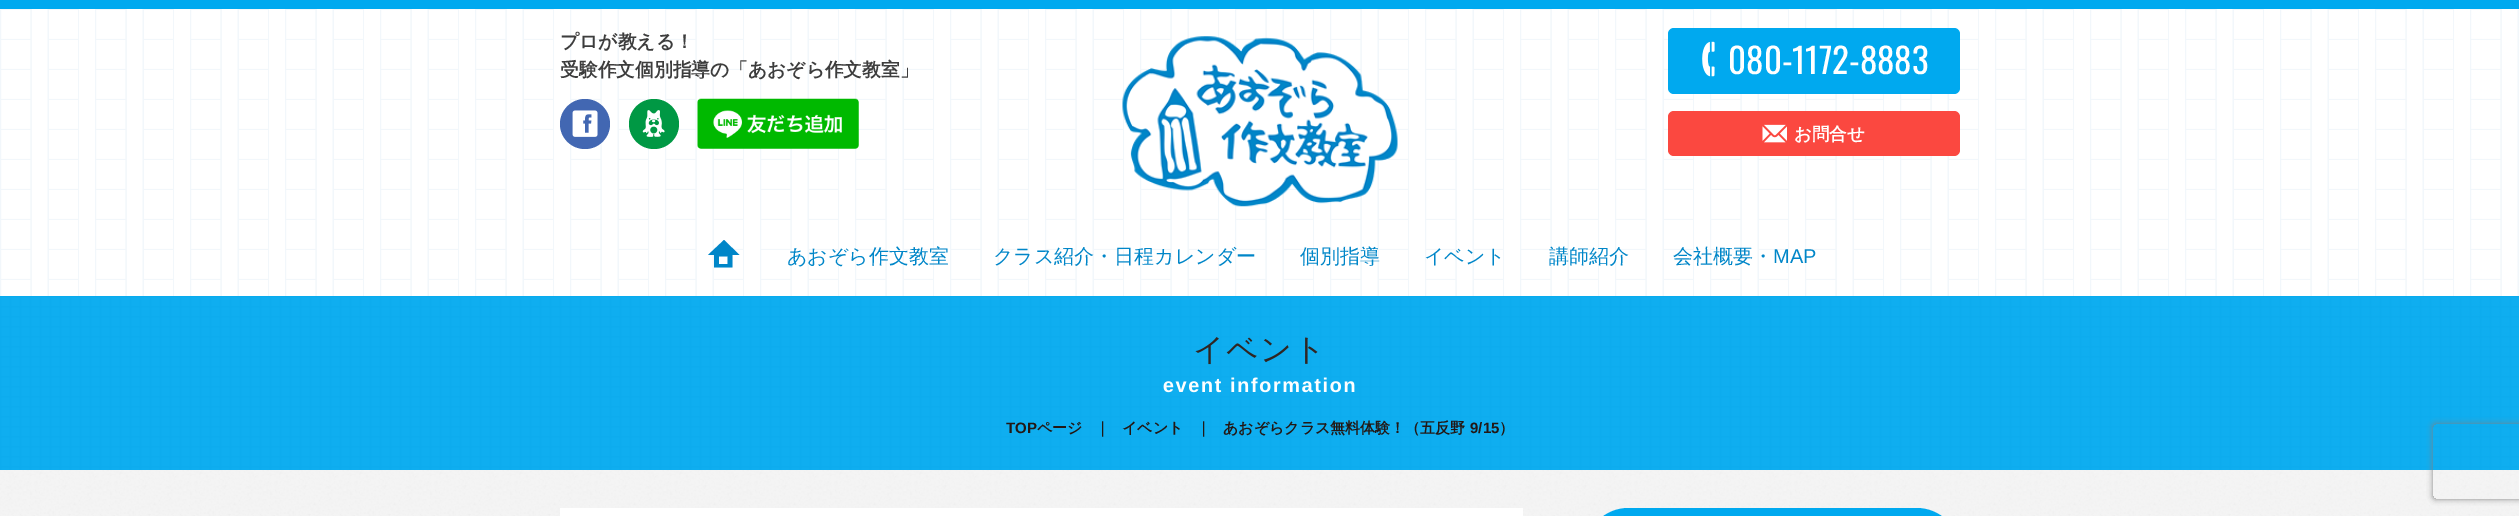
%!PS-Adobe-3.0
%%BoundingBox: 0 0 2519 516
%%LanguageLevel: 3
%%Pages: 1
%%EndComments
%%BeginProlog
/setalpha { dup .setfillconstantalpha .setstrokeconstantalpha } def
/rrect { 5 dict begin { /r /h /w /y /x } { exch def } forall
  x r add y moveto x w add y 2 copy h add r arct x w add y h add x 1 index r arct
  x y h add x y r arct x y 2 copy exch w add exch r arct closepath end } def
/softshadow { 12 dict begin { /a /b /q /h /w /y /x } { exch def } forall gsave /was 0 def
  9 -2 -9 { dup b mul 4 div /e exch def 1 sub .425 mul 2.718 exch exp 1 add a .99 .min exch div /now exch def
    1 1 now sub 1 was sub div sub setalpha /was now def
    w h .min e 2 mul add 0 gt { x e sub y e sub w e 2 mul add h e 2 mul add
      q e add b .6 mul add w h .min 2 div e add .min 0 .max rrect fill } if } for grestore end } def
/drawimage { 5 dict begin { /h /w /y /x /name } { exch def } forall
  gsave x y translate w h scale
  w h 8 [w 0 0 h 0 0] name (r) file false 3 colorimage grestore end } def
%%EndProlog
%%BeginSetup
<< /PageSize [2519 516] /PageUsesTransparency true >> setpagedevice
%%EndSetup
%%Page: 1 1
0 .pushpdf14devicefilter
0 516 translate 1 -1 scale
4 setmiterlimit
1 setgray
0 0 2519 516 rectfill
(images/1.raw) 0 9 2519 287 drawimage
0 0.663 0.937 setrgbcolor
0 0 2519 9 rectfill
0.259 0.404 0.698 setrgbcolor
newpath 585 124 25 0 360 arc closepath fill
(images/2.raw) 572 110 26 27 drawimage
0 0.596 0.267 setrgbcolor
newpath 654 124 25 0 360 arc closepath fill
(images/3.raw) 642 110 23 27 drawimage
(images/4.raw) 697 98 162 51 drawimage
(images/5.raw) 1122 36 276 171 drawimage
0 0.663 0.937 setrgbcolor
1668 28 292 66 6 rrect fill
(images/6.raw) 1702 41 13 36 drawimage
0.984 0.282 0.251 setrgbcolor
1668 111 292 45 6 rrect fill
(images/7.raw) 1762 124 25 19 drawimage
0 0.525 0.784 setrgbcolor
newpath 724 240 moveto 708 255 lineto 714 255 lineto 714 267.5 lineto 732.5 267.5 lineto 732.5 255 lineto 739.5 255 lineto closepath 727.5 264 moveto 719 264 lineto 719 256.5 lineto 727.5 256.5 lineto closepath fill
0 0.663 0.937 setrgbcolor
0 296 2519 174 rectfill
(images/9.raw) 0 470 2519 46 drawimage
1 setgray
560 508 963 8 rectfill
0 0.663 0.937 setrgbcolor
1585 508 375 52 43.5 rrect fill
/WenQuanYiZenHei-Bold [18.75 0 0 -18.75 0 0] selectfont
0.239 setgray
560 48 moveto (プロが教える！) show
560 76 moveto (受験作文個別指導の「あおぞら作文教室」) show
/Oswald-Regular [35 0 0 -35 0 0] selectfont
1 setgray
1728 74 moveto (080-1172-8883) show
/WenQuanYiZenHei-Bold [17.5 0 0 -17.5 0 0] selectfont
1794 140 moveto (お問合せ) show
/WenQuanYiZenHei-Medium [20 0 0 -20 0 0] selectfont
0 0.525 0.784 setrgbcolor
787 263 moveto (あおぞら作文教室) show
993 263 moveto (クラス紹介・日程カレンダー) show
1300 263 moveto (個別指導) show
1424 263 moveto (イベント) show
1549 263 moveto (講師紹介) show
1673 263 moveto (会社概要・) show
/LiberationSans-Regular [20 0 0 -20 0 0] selectfont
1773 263 moveto (MAP) show
/WenQuanYiZenHei-Bold [31.25 0 0 -31.25 0 0] selectfont
0.137 0.094 0.082 setrgbcolor
1193 360 moveto 1.6 0 (イベント) ashow
/LiberationSans-Bold [20 0 0 -20 0 0] selectfont
1 setgray
1163 392 moveto 1.6 0 (event information) ashow
(images/8.raw) 0 296 2519 174 drawimage
/LiberationSans-Bold [15 0 0 -15 0 0] selectfont
0.137 0.094 0.082 setrgbcolor
1006 433 moveto (TOP) show
/WenQuanYiZenHei-Bold [15 0 0 -15 0 0] selectfont
1037 433 moveto (ページ) show
1095 433 moveto (｜) show
1122 433 moveto (イベント) show
1196 433 moveto (｜) show
1223 433 moveto (あおぞらクラス無料体験！（五反野) show
/LiberationSans-Bold [15 0 0 -15 0 0] selectfont
1470 433 moveto (9/15) show
/WenQuanYiZenHei-Bold [15 0 0 -15 0 0] selectfont
1499 433 moveto (）) show
gsave
newpath 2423 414 moveto 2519 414 lineto 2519 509 lineto 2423 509 lineto closepath 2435.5 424 moveto 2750.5 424 lineto 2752 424 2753 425 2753 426.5 curveto 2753 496.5 lineto 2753 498 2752 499 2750.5 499 curveto 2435.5 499 lineto 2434 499 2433 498 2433 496.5 curveto 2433 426.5 lineto 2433 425 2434 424 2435.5 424 curveto closepath eoclip newpath
0.502 setgray
2433 424 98 75 2.5 3 1 softshadow
grestore
.poppdf14devicefilter showpage
%%EOF
